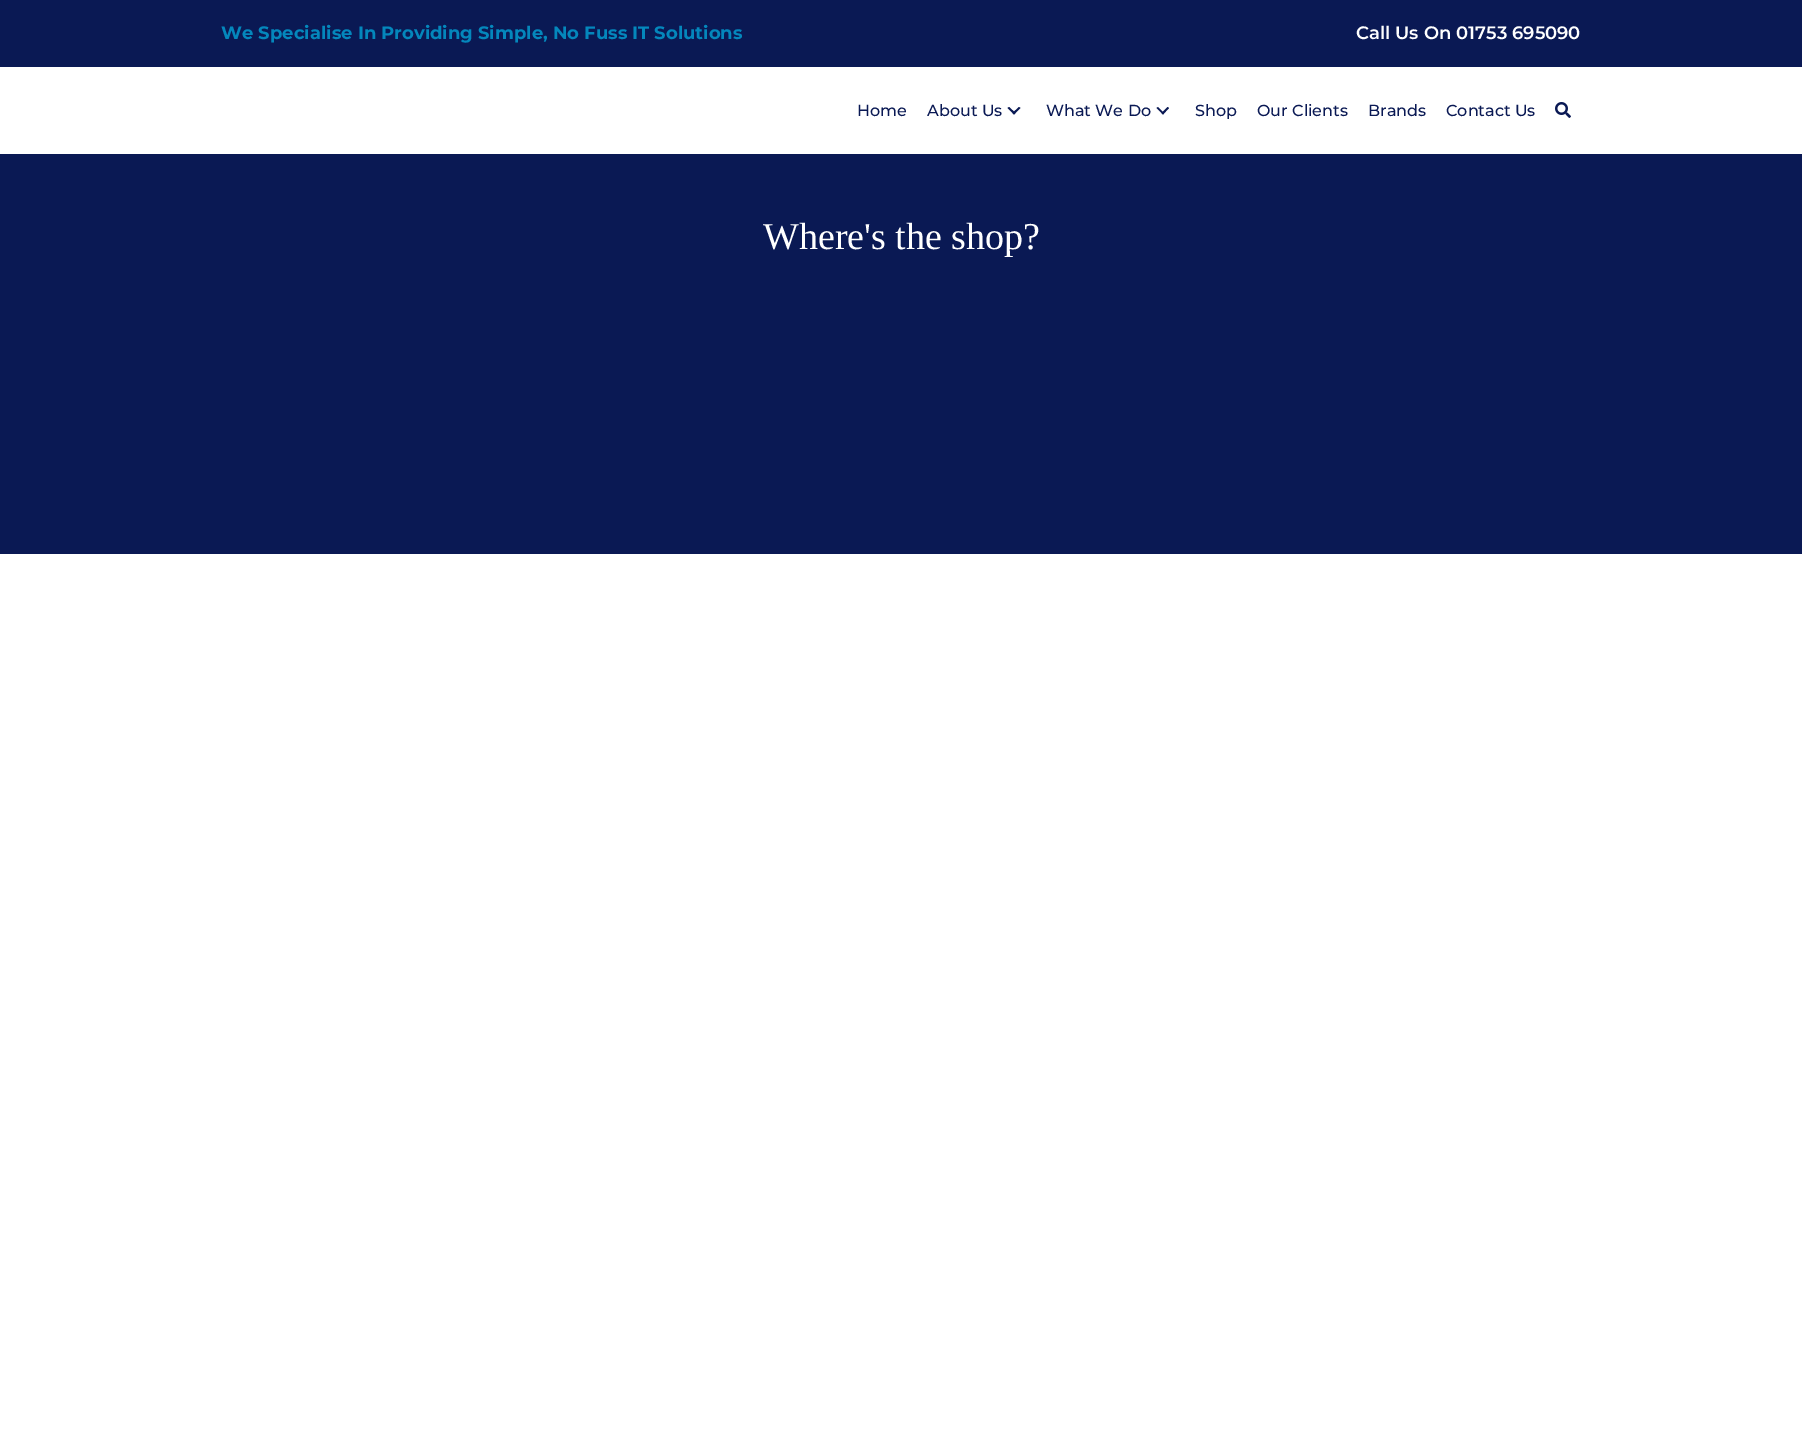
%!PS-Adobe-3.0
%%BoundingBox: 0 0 1802 1437
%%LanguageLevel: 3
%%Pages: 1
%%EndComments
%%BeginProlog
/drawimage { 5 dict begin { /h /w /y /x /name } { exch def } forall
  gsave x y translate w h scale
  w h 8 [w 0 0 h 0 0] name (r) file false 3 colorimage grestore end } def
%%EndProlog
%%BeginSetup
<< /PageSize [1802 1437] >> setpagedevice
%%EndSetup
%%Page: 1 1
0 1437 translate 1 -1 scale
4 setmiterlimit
1 setgray
0 0 1802 1437 rectfill
0.039 0.098 0.329 setrgbcolor
0 0 1802 67 rectfill
newpath 1019 107 moveto 1020.5 108 lineto 1014 114.5 lineto 1012.5 113 lineto closepath fill
newpath 1009 107 moveto 1015.5 113 lineto 1014 114.5 lineto 1007.5 108 lineto closepath fill
newpath 1167.5 107 moveto 1169 108 lineto 1163 114.5 lineto 1161.5 113 lineto closepath fill
newpath 1158 107 moveto 1164 113 lineto 1163 114.5 lineto 1156.5 108 lineto closepath fill
(images/1.raw) 1555 102 16 16 drawimage
0 154 1802 400 rectfill
/Montserrat-Bold [18 0 0 -18 0 0] selectfont
0.016 0.529 0.737 setrgbcolor
221 39 moveto (We Specialise In Providing Simple, No Fuss IT Solutions) show
/Montserrat-SemiBold [18 0 0 -18 0 0] selectfont
1 setgray
1356 39 moveto (Call Us On 01753 695090) show
/Montserrat-Medium [16 0 0 -16 0 0] selectfont
0.039 0.098 0.329 setrgbcolor
857 116 moveto (Home) show
927 116 moveto (About Us) show
1046 116 moveto (What We Do) show
1195 116 moveto (Shop) show
1257 116 moveto (Our Clients) show
1368 116 moveto (Brands) show
1446 116 moveto (Contact Us) show
/LiberationSerif-Regular [38 0 0 -38 0 0] selectfont
1 setgray
763 249 moveto (Where's the shop?) show
showpage
%%EOF
